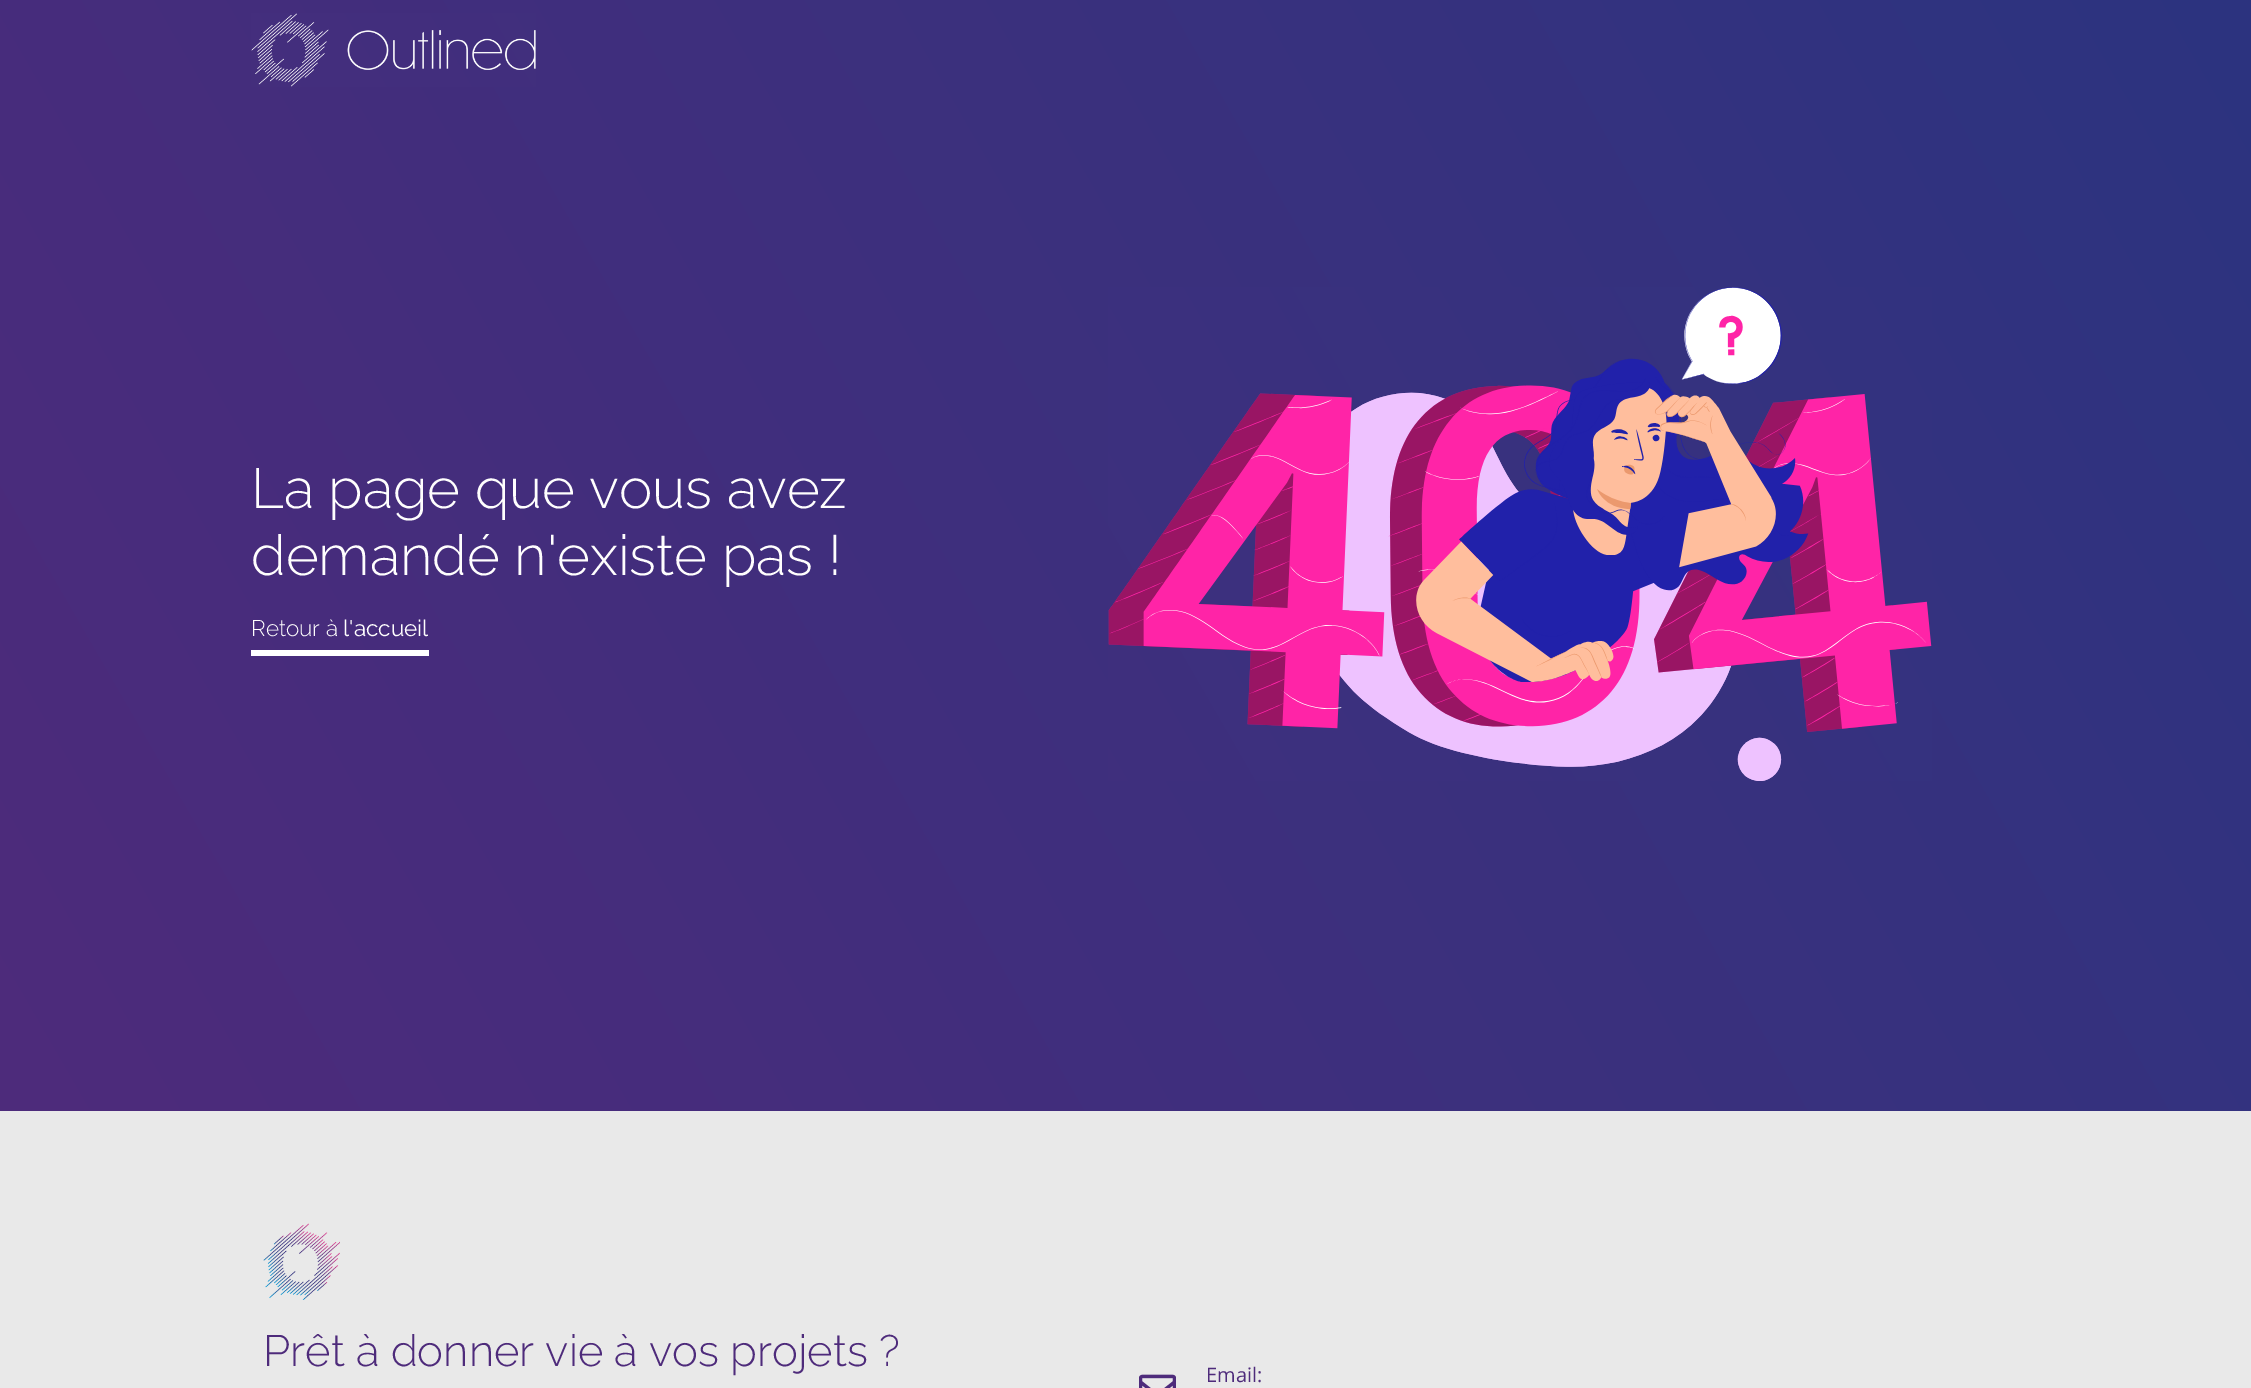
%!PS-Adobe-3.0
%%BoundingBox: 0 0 2251 1388
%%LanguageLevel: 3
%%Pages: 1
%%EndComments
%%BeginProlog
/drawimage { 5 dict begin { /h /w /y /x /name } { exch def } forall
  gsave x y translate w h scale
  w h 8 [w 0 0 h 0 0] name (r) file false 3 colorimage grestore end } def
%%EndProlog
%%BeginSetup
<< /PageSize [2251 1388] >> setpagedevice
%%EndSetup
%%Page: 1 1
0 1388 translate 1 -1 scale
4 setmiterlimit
1 setgray
0 0 2251 1388 rectfill
gsave newpath 0 0 moveto 2251 0 lineto 2251 1111 lineto 0 1111 lineto closepath clip newpath
<< /ShadingType 2 /ColorSpace /DeviceRGB /Coords [41 1182 2210 -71] /Extend [true true] /Function << /FunctionType 2 /Domain [0 1] /C0 [0.306 0.169 0.482] /C1 [0.173 0.204 0.502] /N 1 >> >> shfill grestore
(images/1.raw) 251 13 285 74 drawimage
251 650 178 6 rectfill
(images/2.raw) 1108 287 824 494 drawimage
0.914 setgray
0 1111 2251 277 rectfill
(images/3.raw) 263 1223 77 77 drawimage
(images/4.raw) 1139 1374 37 14 drawimage
/Raleway-Light [56.25 0 0 -56.25 0 0] selectfont
1 0.996 0.996 setrgbcolor
251 508 moveto (La page que vous avez) show
251 575 moveto (demandé n'existe pas !) show
/Raleway-Light [22.5 0 0 -22.5 0 0] selectfont
251 636 moveto (Retour à) show
/Raleway-Regular [22.5 0 0 -22.5 0 0] selectfont
343 636 moveto (l'accueil) show
/Raleway-Light [43.75 0 0 -43.75 0 0] selectfont
0.306 0.169 0.482 setrgbcolor
263 1366 moveto (Prêt à donner vie à vos projets ?) show
/OpenSans-Regular [20 0 0 -20 0 0] selectfont
1206 1382 moveto (Email:) show
showpage
%%EOF
